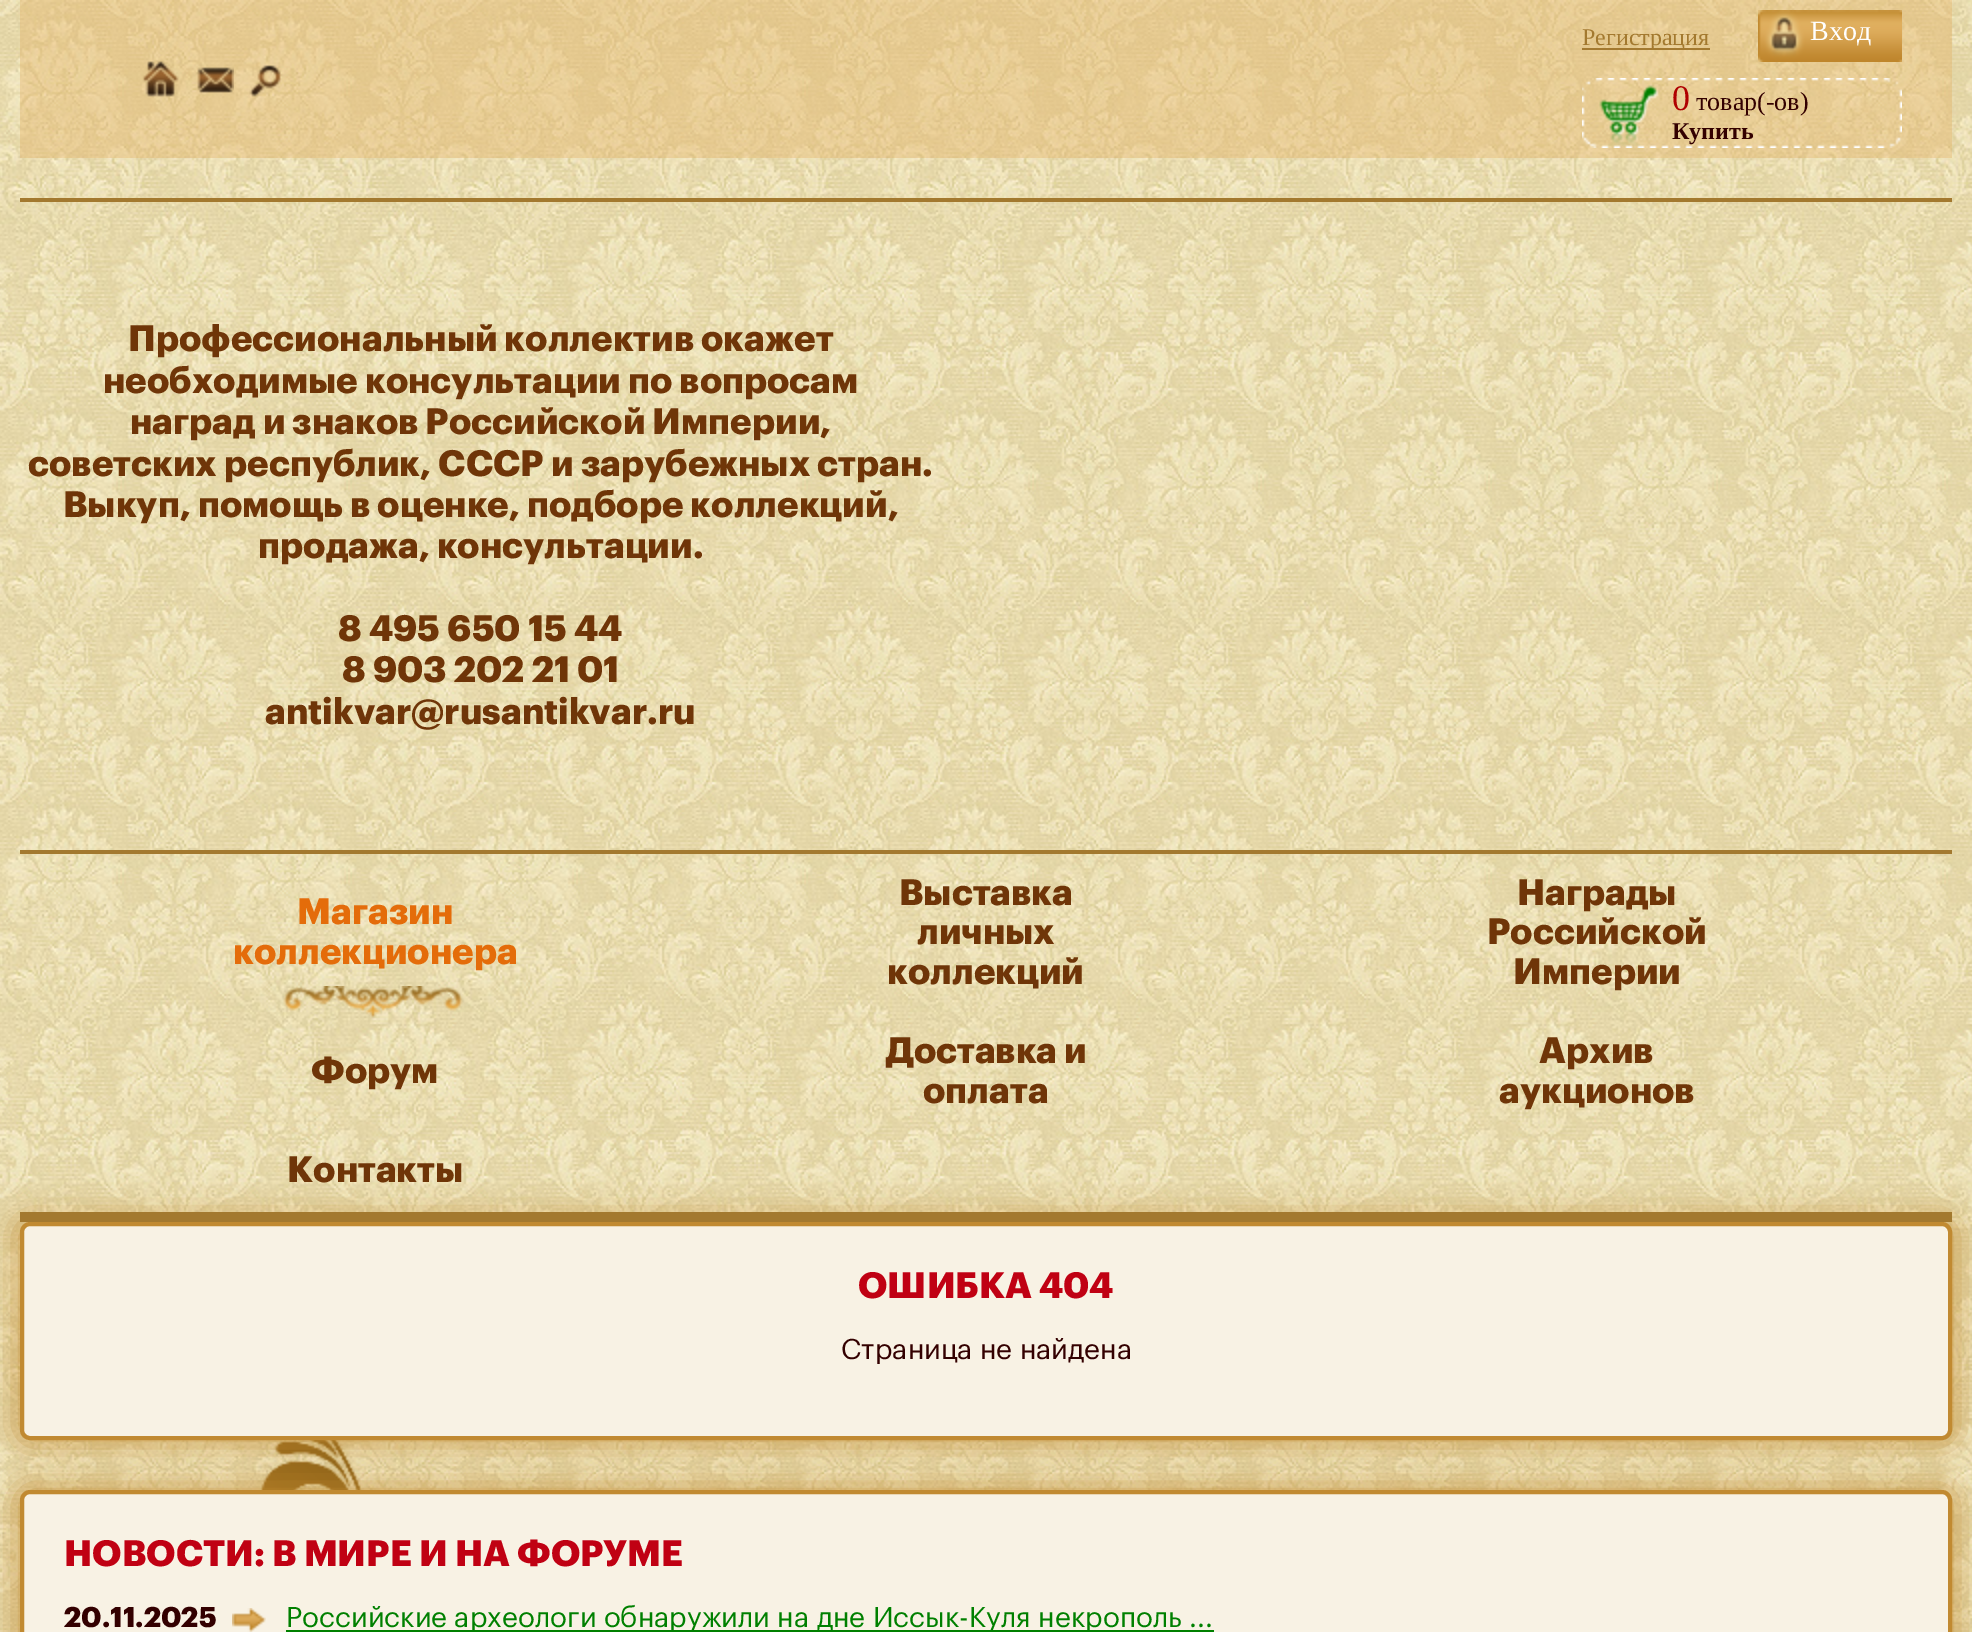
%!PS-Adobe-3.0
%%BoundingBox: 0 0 1972 1632
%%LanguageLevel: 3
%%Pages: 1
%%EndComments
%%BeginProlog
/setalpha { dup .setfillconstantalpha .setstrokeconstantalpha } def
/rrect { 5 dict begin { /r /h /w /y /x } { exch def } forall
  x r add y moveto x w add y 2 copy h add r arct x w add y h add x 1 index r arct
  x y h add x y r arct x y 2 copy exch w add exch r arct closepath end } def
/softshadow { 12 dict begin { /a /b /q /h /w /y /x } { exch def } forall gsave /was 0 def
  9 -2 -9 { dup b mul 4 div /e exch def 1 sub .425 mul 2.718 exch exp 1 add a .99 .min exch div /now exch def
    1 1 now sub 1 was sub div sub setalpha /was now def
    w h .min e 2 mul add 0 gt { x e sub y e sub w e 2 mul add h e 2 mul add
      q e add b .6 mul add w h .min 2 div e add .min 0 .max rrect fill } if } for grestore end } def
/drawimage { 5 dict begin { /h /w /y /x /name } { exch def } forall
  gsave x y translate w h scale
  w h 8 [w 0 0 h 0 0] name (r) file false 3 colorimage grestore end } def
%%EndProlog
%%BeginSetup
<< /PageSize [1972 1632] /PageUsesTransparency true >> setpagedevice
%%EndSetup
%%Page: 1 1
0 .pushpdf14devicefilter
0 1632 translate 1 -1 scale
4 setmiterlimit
1 setgray
0 0 1972 1632 rectfill
(images/1.raw) 0 0 1972 1632 drawimage
0.38 setalpha
0.894 0.694 0.396 setrgbcolor
20 0 1932 158 rectfill
1 setalpha
(images/2.raw) 142 61 37 36 drawimage
(images/3.raw) 197 67 37 26 drawimage
(images/4.raw) 249 65 32 32 drawimage
0.639 0.475 0.184 setrgbcolor
1582 48 128 2 rectfill
(images/5.raw) 1758 10 144 52 drawimage
(images/6.raw) 1582 78 320 70 drawimage
20 198 1932 4 rectfill
20 850 1932 4 rectfill
(images/9.raw) 261 1440 102 50 drawimage
0.757 0.541 0.192 setrgbcolor
14 1216 1944 230 16 15 0.7 softshadow
0.639 0.475 0.184 setrgbcolor
20 1212 1932 10 rectfill
(images/7.raw) 283 986 180 33 drawimage
0.973 0.949 0.894 setrgbcolor
22 1224 1928 214 8 rrect gsave fill grestore
0.757 0.541 0.192 setrgbcolor
4 setlinewidth
stroke
14 1484 1944 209 16 15 0.7 softshadow
0.973 0.949 0.894 setrgbcolor
22 1492 1928 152 8 rrect gsave fill grestore
0.757 0.541 0.192 setrgbcolor
stroke
(images/8.raw) 232 1608 34 24 drawimage
0 0.502 0 setrgbcolor
286 1630 928 2 rectfill
/LiberationSerif-Regular [24 0 0 -24 0 0] selectfont
0.639 0.475 0.184 setrgbcolor
1582 45 moveto (Регистрация) show
/LiberationSerif-Regular [28 0 0 -28 0 0] selectfont
1 setgray
1810 40 moveto (Вход) show
/LiberationSerif-Regular [36 0 0 -36 0 0] selectfont
0.686 0 0 setrgbcolor
1672 110 moveto (0) show
/LiberationSerif-Regular [26 0 0 -26 0 0] selectfont
0.2 0 0 setrgbcolor
1696 110 moveto (товар\(-ов\)) show
/LiberationSerif-Bold [24 0 0 -24 0 0] selectfont
1672 139 moveto (Купить) show
/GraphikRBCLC-Bold [36 0 0 -36 0 0] selectfont
0.435 0.208 0.031 setrgbcolor
128 351 moveto (Профессиональный коллектив окажет) show
103 393 moveto (необходимые консультации по вопросам) show
130 434 moveto (наград и знаков Российской Империи,) show
28 476 moveto (советских республик, СССР и зарубежных стран.) show
63 517 moveto (Выкуп, помощь в оценке, подборе коллекций,) show
258 558 moveto (продажа, консультации.) show
338 641 moveto (8 495 650 15 44) show
342 682 moveto (8 903 202 21 01) show
265 724 moveto (antikvar@rusantikvar.ru) show
0.894 0.424 0.039 setrgbcolor
297 924 moveto (Магазин) show
233 964 moveto (коллекционера) show
0.435 0.208 0.031 setrgbcolor
899 905 moveto (Выставка) show
917 944 moveto (личных) show
887 984 moveto (коллекций) show
1517 905 moveto (Награды) show
1487 944 moveto (Российской) show
1513 984 moveto (Империи) show
311 1083 moveto (Форум) show
886 1063 moveto (Доставка и) show
923 1103 moveto (оплата) show
1539 1063 moveto (Архив) show
1499 1103 moveto (аукционов) show
287 1182 moveto (Контакты) show
0.753 0.004 0.075 setrgbcolor
858 1298 moveto (ОШИБКА 404) show
/GraphikRBCLC-Regular [28 0 0 -28 0 0] selectfont
0.2 0 0 setrgbcolor
841 1359 moveto (Страница не найдена) show
/GraphikRBCLC-Bold [36 0 0 -36 0 0] selectfont
0.753 0.004 0.075 setrgbcolor
64 1566 moveto (НОВОСТИ: В МИРЕ И НА ФОРУМЕ) show
/GraphikRBCLC-Bold [28 0 0 -28 0 0] selectfont
0.2 0 0 setrgbcolor
64 1627 moveto (20.11.2025) show
/GraphikRBCLC-Regular [28 0 0 -28 0 0] selectfont
0 0.502 0 setrgbcolor
286 1627 moveto (Российские археологи обнаружили на дне Иссык-Куля некрополь ...) show
.poppdf14devicefilter showpage
%%EOF
